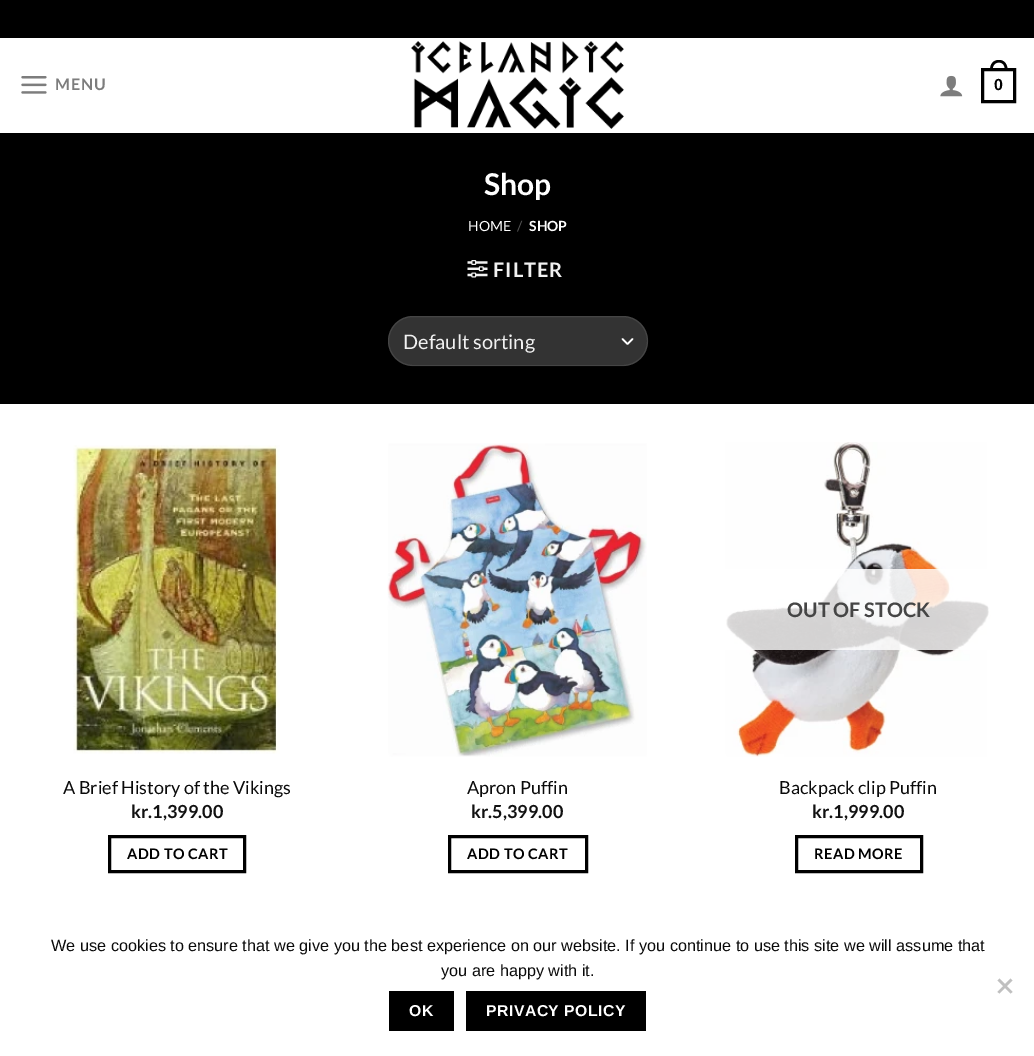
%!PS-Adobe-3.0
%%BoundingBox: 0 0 1034 1056
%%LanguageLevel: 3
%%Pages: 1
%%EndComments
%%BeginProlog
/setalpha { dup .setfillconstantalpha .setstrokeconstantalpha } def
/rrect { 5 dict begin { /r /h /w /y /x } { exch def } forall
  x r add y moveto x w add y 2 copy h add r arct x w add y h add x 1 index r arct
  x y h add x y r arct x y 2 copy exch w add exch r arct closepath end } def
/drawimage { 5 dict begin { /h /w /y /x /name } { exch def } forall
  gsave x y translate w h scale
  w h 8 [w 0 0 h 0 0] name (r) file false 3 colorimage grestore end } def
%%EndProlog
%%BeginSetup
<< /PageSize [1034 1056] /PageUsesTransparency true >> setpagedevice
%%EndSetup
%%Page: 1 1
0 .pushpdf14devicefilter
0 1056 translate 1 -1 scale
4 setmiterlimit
1 setgray
0 0 1034 1056 rectfill
0 setgray
0 0 1034 38 rectfill
(images/1.raw) 21 76 26 18 drawimage
(images/2.raw) 411 41 213 88 drawimage
(images/3.raw) 940 75 23 22 drawimage
3 setlinewidth
982.5 69.5 32 32 rectstroke
newpath 999 60 moveto 1004.5 60 1007.5 64.5 1007.5 70 curveto 990 70 lineto 990 64.5 993 60 999 60 curveto closepath 999 62.5 moveto 1003 62.5 1005 66 1005 70 curveto 992.5 70 lineto 992.5 66 994.5 62.5 999 62.5 curveto closepath eofill
0 133 1034 271 rectfill
(images/4.raw) 467 260 21 18 drawimage
0.2 setgray
388 316 260 50 25 rrect fill
1 setgray
1.7 setlinewidth
1 setlinecap
1 setlinejoin
newpath 622.5 339 moveto 627.5 344 lineto 632.5 339 lineto stroke
0.09 setalpha
1 setlinewidth
0 setlinecap
0 setlinejoin
388.5 316.5 259 49 24.5 rrect stroke
1 setalpha
(images/5.raw) 73 445 207 309 drawimage
0 setgray
3 setlinewidth
109.5 836.5 135 35 rectstroke
(images/6.raw) 387 443 260 314 drawimage
449.5 836.5 137 35 rectstroke
(images/7.raw) 725 442 266 315 drawimage
0.81 setalpha
1 setgray
725 569 266 81 rectfill
1 setalpha
0 setgray
796.5 836.5 125 35 rectstroke
0.753 setgray
newpath 1010.5 978.5 moveto 1012.5 980.5 lineto 999.5 993.5 lineto 997.5 992 lineto closepath fill
newpath 997.5 980.5 moveto 999.5 978.5 lineto 1012.5 992 lineto 1010.5 993.5 lineto closepath fill
0 setgray
389 991 65 40 rectfill
466 991 180 40 rectfill
/Lato-Bold [16 0 0 -16 0 0] selectfont
0.49 setgray
55 90 moveto 1 0 (MENU) ashow
/LiberationSans-Bold [16 0 0 -16 0 0] selectfont
0 setgray
994 90 moveto (0) show
/Lato-Bold [30 0 0 -30 0 0] selectfont
1 setgray
484 195 moveto (Shop) show
/Lato-Regular [14 0 0 -14 0 0] selectfont
468 231 moveto (HOME) show
0.349 setgray
517 231 moveto (/) show
/Lato-Bold [14 0 0 -14 0 0] selectfont
1 setgray
529 231 moveto (SHOP) show
/Lato-Bold [20 0 0 -20 0 0] selectfont
0.945 setgray
493 277 moveto 1 0 (FILTER) ashow
/Lato-Regular [20 0 0 -20 0 0] selectfont
403 349 moveto (Default sorting) show
/Lato-Regular [18 0 0 -18 0 0] selectfont
0.039 setgray
63 794 moveto (A Brief History of the Vikings) show
/Lato-Bold [18 0 0 -18 0 0] selectfont
0.067 setgray
131 818 moveto (kr.1,399.00) show
/Lato-Bold [14.5 0 0 -14.5 0 0] selectfont
0 setgray
127 859 moveto 0.5 0 (ADD TO CART) ashow
/Lato-Regular [18 0 0 -18 0 0] selectfont
0.039 setgray
467 794 moveto (Apron Puffin) show
/Lato-Bold [18 0 0 -18 0 0] selectfont
0.067 setgray
471 818 moveto (kr.5,399.00) show
/Lato-Bold [14.5 0 0 -14.5 0 0] selectfont
0 setgray
467 859 moveto 0.5 0 (ADD TO CART) ashow
/Lato-Bold [20 0 0 -20 0 0] selectfont
0.271 setgray
787 617 moveto (OUT OF STOCK) show
/Lato-Regular [18 0 0 -18 0 0] selectfont
0.039 setgray
779 794 moveto (Backpack clip Puffin) show
/Lato-Bold [18 0 0 -18 0 0] selectfont
0.067 setgray
812 818 moveto (kr.1,999.00) show
/Lato-Bold [14.5 0 0 -14.5 0 0] selectfont
0 setgray
814 859 moveto 0.5 0 (READ MORE) ashow
/LiberationSans-Regular [16.25 0 0 -16.25 0 0] selectfont
0.039 setgray
51 951 moveto (We use cookies to ensure that we give you the best experience on our website. If you continue to use this site we will assume that) show
441 976 moveto (you are happy with it.) show
/LiberationSans-Bold [15.75 0 0 -15.75 0 0] selectfont
1 setgray
409 1016 moveto 0.5 0 (OK) ashow
486 1016 moveto 0.5 0 (PRIVACY POLICY) ashow
.poppdf14devicefilter showpage
%%EOF
